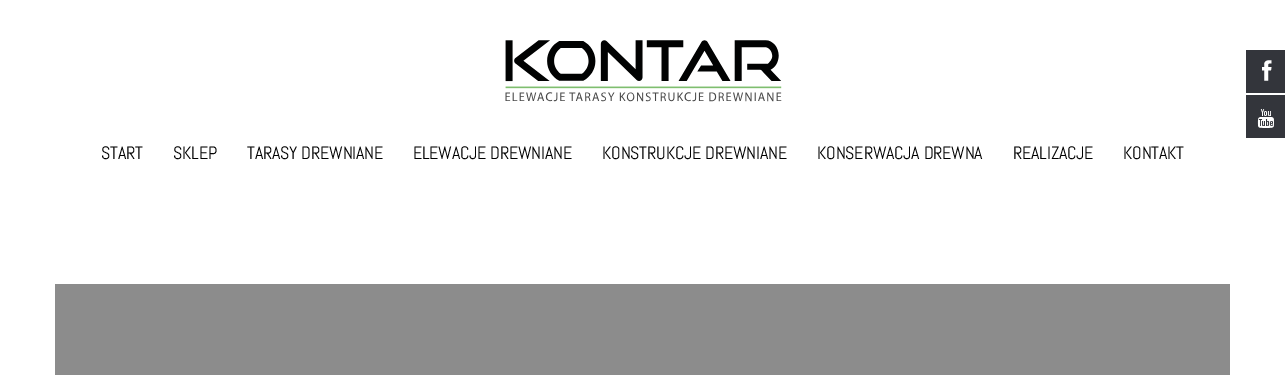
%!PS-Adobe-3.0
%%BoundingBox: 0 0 1285 375
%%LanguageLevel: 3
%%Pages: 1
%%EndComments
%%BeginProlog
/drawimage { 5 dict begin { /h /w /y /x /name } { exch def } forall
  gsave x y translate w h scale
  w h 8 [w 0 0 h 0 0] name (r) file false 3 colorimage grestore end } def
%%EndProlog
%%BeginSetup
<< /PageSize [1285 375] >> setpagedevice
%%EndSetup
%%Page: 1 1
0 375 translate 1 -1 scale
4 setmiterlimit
1 setgray
0 0 1285 375 rectfill
0.2 0.208 0.231 setrgbcolor
1246 50 39 43 rectfill
(images/1.raw) 1262 60 10 21 drawimage
1246 95 39 43 rectfill
(images/2.raw) 1257 109 17 19 drawimage
(images/3.raw) 505 40 277 62 drawimage
0.549 setgray
55 284 1175 91 rectfill
/Abel-Regular [18 0 0 -18 0 0] selectfont
0 setgray
101 159 moveto -0.2 0 (START) ashow
173 159 moveto -0.2 0 (SKLEP) ashow
247 159 moveto -0.2 0 (TARASY DREWNIANE) ashow
413 159 moveto -0.2 0 (ELEWACJE DREWNIANE) ashow
602 159 moveto -0.2 0 (KONSTRUKCJE DREWNIANE) ashow
817 159 moveto -0.2 0 (KONSERWACJA DREWNA) ashow
1013 159 moveto -0.2 0 (REALIZACJE) ashow
1123 159 moveto -0.2 0 (KONTAKT) ashow
showpage
%%EOF
